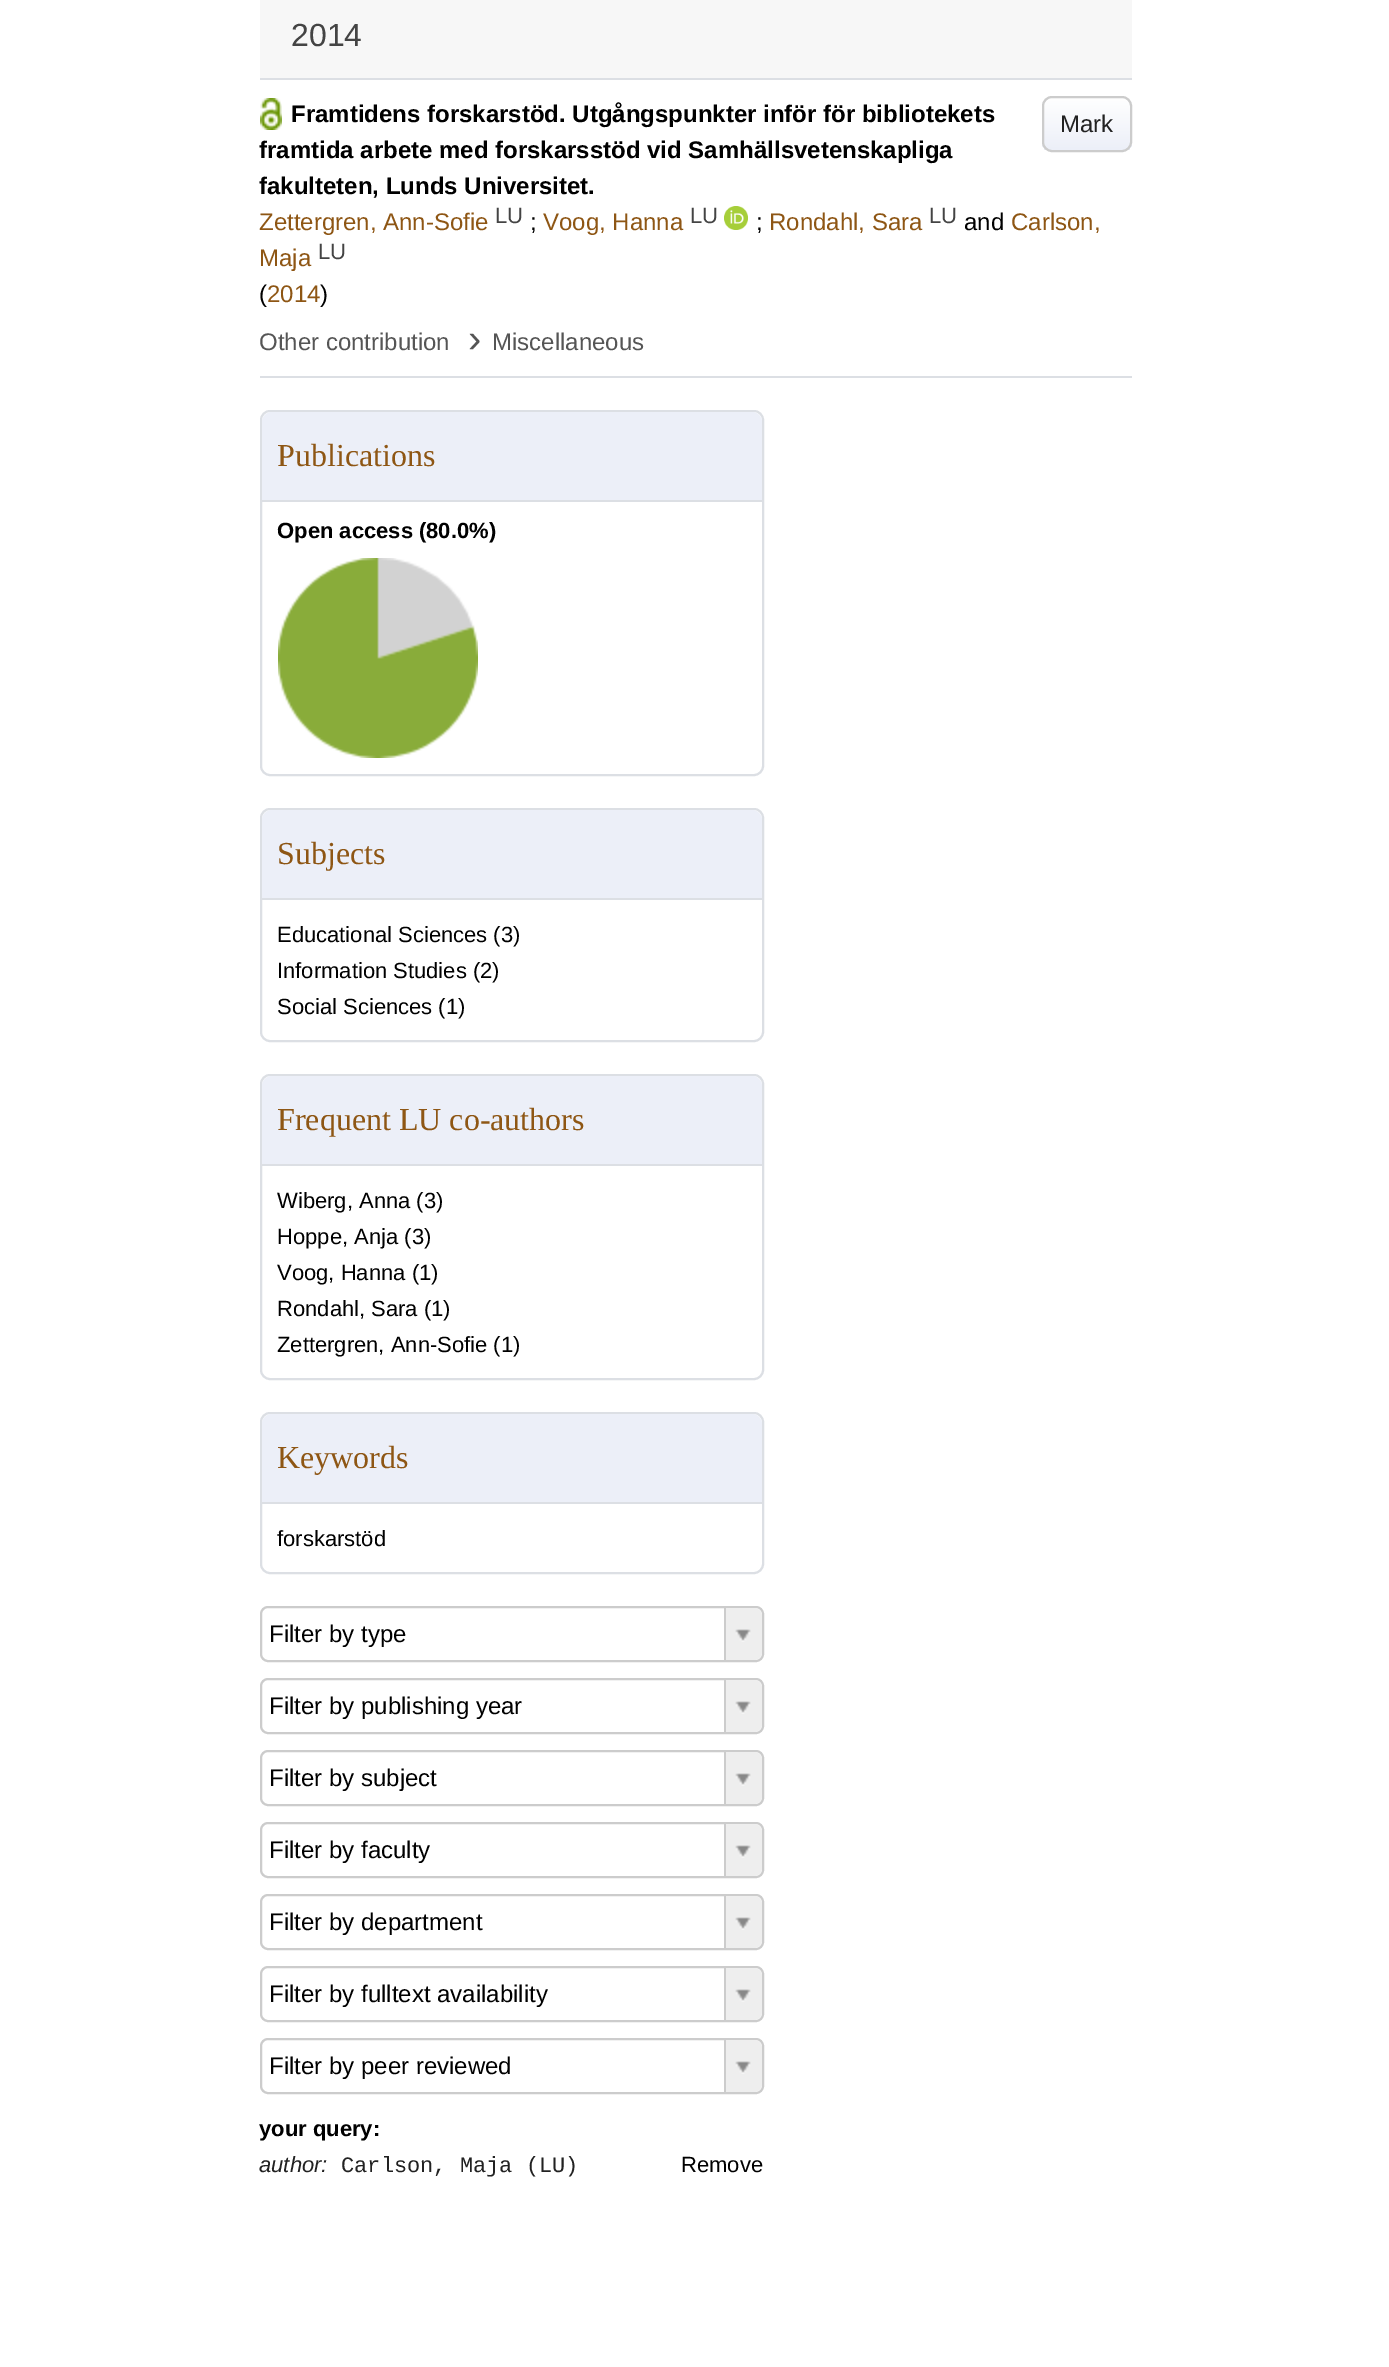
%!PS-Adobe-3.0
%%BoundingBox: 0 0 1389 2367
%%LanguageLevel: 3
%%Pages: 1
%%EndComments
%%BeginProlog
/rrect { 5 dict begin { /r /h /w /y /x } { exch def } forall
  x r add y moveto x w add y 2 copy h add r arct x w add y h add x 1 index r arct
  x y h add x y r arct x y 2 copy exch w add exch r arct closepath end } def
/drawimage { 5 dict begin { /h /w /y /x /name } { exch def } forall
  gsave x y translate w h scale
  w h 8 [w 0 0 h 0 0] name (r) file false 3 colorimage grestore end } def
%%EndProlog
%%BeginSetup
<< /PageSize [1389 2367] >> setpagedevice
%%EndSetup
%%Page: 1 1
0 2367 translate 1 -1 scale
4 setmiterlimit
1 setgray
0 0 1389 2367 rectfill
0.969 setgray
260 0 872 78 rectfill
0.863 0.875 0.894 setrgbcolor
260 78 872 2 rectfill
(images/1.raw) 260 98 22 32 drawimage
260 376 872 2 rectfill
gsave
1042 96 90 56 10 rrect clip newpath
gsave newpath 1042 98 moveto 1132 98 lineto 1132 150 lineto 1042 150 lineto closepath clip newpath
<< /ShadingType 2 /ColorSpace /DeviceRGB /Coords [1087 98 1087 150] /Extend [true true] /Function << /FunctionType 2 /Domain [0 1] /C0 [1 1 1] /C1 [0.925 0.937 0.973] /N 1 >> >> shfill grestore
grestore
0.8 setgray
2 setlinewidth
1043 97 88 54 9 rrect stroke
(images/2.raw) 724 206 24 24 drawimage
0.863 0.875 0.894 setrgbcolor
261 411 502 364 9 rrect stroke
0.925 0.937 0.973 setrgbcolor
newpath 272 412 moveto 752 412 lineto 757.5 412 762 416.5 762 422 curveto 762 502 lineto 262 502 lineto 262 422 lineto 262 416.5 266.5 412 272 412 curveto closepath fill
0.863 0.875 0.894 setrgbcolor
262 500 500 2 rectfill
(images/3.raw) 278 558 200 200 drawimage
261 809 502 232 9 rrect stroke
0.925 0.937 0.973 setrgbcolor
newpath 272 810 moveto 752 810 lineto 757.5 810 762 814.5 762 820 curveto 762 900 lineto 262 900 lineto 262 820 lineto 262 814.5 266.5 810 272 810 curveto closepath fill
0.863 0.875 0.894 setrgbcolor
262 898 500 2 rectfill
261 1075 502 304 9 rrect stroke
0.925 0.937 0.973 setrgbcolor
newpath 272 1076 moveto 752 1076 lineto 757.5 1076 762 1080.5 762 1086 curveto 762 1166 lineto 262 1166 lineto 262 1086 lineto 262 1080.5 266.5 1076 272 1076 curveto closepath fill
0.863 0.875 0.894 setrgbcolor
262 1164 500 2 rectfill
261 1413 502 160 9 rrect stroke
0.925 0.937 0.973 setrgbcolor
newpath 272 1414 moveto 752 1414 lineto 757.5 1414 762 1418.5 762 1424 curveto 762 1504 lineto 262 1504 lineto 262 1424 lineto 262 1418.5 266.5 1414 272 1414 curveto closepath fill
0.863 0.875 0.894 setrgbcolor
262 1502 500 2 rectfill
0.8 setgray
261 1607 502 54 7 rrect stroke
0.933 setgray
newpath 724 1608 moveto 754 1608 lineto 758.5 1608 762 1611.5 762 1616 curveto 762 1652 lineto 762 1656.5 758.5 1660 754 1660 curveto 724 1660 lineto closepath fill
0.8 setgray
724 1608 2 52 rectfill
(images/4.raw) 735 1629 16 13 drawimage
261 1679 502 54 7 rrect stroke
0.933 setgray
newpath 724 1680 moveto 754 1680 lineto 758.5 1680 762 1683.5 762 1688 curveto 762 1724 lineto 762 1728.5 758.5 1732 754 1732 curveto 724 1732 lineto closepath fill
0.8 setgray
724 1680 2 52 rectfill
(images/4.raw) 735 1701 16 13 drawimage
261 1751 502 54 7 rrect stroke
0.933 setgray
newpath 724 1752 moveto 754 1752 lineto 758.5 1752 762 1755.5 762 1760 curveto 762 1796 lineto 762 1800.5 758.5 1804 754 1804 curveto 724 1804 lineto closepath fill
0.8 setgray
724 1752 2 52 rectfill
(images/4.raw) 735 1773 16 13 drawimage
261 1823 502 54 7 rrect stroke
0.933 setgray
newpath 724 1824 moveto 754 1824 lineto 758.5 1824 762 1827.5 762 1832 curveto 762 1868 lineto 762 1872.5 758.5 1876 754 1876 curveto 724 1876 lineto closepath fill
0.8 setgray
724 1824 2 52 rectfill
(images/4.raw) 735 1845 16 13 drawimage
261 1895 502 54 7 rrect stroke
0.933 setgray
newpath 724 1896 moveto 754 1896 lineto 758.5 1896 762 1899.5 762 1904 curveto 762 1940 lineto 762 1944.5 758.5 1948 754 1948 curveto 724 1948 lineto closepath fill
0.8 setgray
724 1896 2 52 rectfill
(images/4.raw) 735 1917 16 13 drawimage
261 1967 502 54 7 rrect stroke
0.933 setgray
newpath 724 1968 moveto 754 1968 lineto 758.5 1968 762 1971.5 762 1976 curveto 762 2012 lineto 762 2016.5 758.5 2020 754 2020 curveto 724 2020 lineto closepath fill
0.8 setgray
724 1968 2 52 rectfill
(images/4.raw) 735 1989 16 13 drawimage
261 2039 502 54 7 rrect stroke
0.933 setgray
newpath 724 2040 moveto 754 2040 lineto 758.5 2040 762 2043.5 762 2048 curveto 762 2084 lineto 762 2088.5 758.5 2092 754 2092 curveto 724 2092 lineto closepath fill
0.8 setgray
724 2040 2 52 rectfill
(images/4.raw) 735 2061 16 13 drawimage
/LiberationSans-Regular [32 0 0 -32 0 0] selectfont
0.267 setgray
291 46 moveto (2014) show
/LiberationSans-Bold [24 0 0 -24 0 0] selectfont
0 setgray
291 122 moveto (Framtidens forskarstöd. Utgångspunkter inför för bibliotekets) show
259 158 moveto (framtida arbete med forskarsstöd vid Samhällsvetenskapliga) show
259 194 moveto (fakulteten, Lunds Universitet.) show
/LiberationSans-Regular [24 0 0 -24 0 0] selectfont
0.133 setgray
1060 132 moveto (Mark) show
0.557 0.337 0.078 setrgbcolor
259 230 moveto (Zettergren, Ann-Sofie) show
/LiberationSans-Regular [22 0 0 -22 0 0] selectfont
0.267 setgray
495 223 moveto (LU) show
/LiberationSans-Regular [24 0 0 -24 0 0] selectfont
0 setgray
530 230 moveto (;) show
0.557 0.337 0.078 setrgbcolor
543 230 moveto (Voog, Hanna) show
/LiberationSans-Regular [22 0 0 -22 0 0] selectfont
0.267 setgray
690 223 moveto (LU) show
/LiberationSans-Regular [24 0 0 -24 0 0] selectfont
0 setgray
756 230 moveto (;) show
0.557 0.337 0.078 setrgbcolor
769 230 moveto (Rondahl, Sara) show
/LiberationSans-Regular [22 0 0 -22 0 0] selectfont
0.267 setgray
929 223 moveto (LU) show
/LiberationSans-Regular [24 0 0 -24 0 0] selectfont
0 setgray
964 230 moveto (and) show
0.557 0.337 0.078 setrgbcolor
1011 230 moveto (Carlson,) show
259 266 moveto (Maja) show
/LiberationSans-Regular [22 0 0 -22 0 0] selectfont
0.267 setgray
318 259 moveto (LU) show
/LiberationSans-Regular [24 0 0 -24 0 0] selectfont
0 setgray
259 302 moveto (\() show
0.557 0.337 0.078 setrgbcolor
267 302 moveto (2014) show
0 setgray
320 302 moveto (\)) show
0.333 setgray
259 350 moveto (Other contribution) show
/LiberationSans-Regular [40 0 0 -40 0 0] selectfont
468 352 moveto (›) show
/LiberationSans-Regular [24 0 0 -24 0 0] selectfont
492 350 moveto (Miscellaneous) show
/LiberationSerif-Regular [32 0 0 -32 0 0] selectfont
0.557 0.337 0.078 setrgbcolor
277 466 moveto (Publications) show
/LiberationSans-Bold [22 0 0 -22 0 0] selectfont
0 setgray
277 538 moveto (Open access \(80.0%\)) show
/LiberationSerif-Regular [32 0 0 -32 0 0] selectfont
0.557 0.337 0.078 setrgbcolor
277 864 moveto (Subjects) show
/LiberationSans-Regular [22 0 0 -22 0 0] selectfont
0 setgray
277 942 moveto (Educational Sciences \(3\)) show
277 978 moveto (Information Studies \(2\)) show
277 1014 moveto (Social Sciences \(1\)) show
/LiberationSerif-Regular [32 0 0 -32 0 0] selectfont
0.557 0.337 0.078 setrgbcolor
277 1130 moveto (Frequent LU co-authors) show
/LiberationSans-Regular [22 0 0 -22 0 0] selectfont
0 setgray
277 1208 moveto (Wiberg, Anna \(3\)) show
277 1244 moveto (Hoppe, Anja \(3\)) show
277 1280 moveto (Voog, Hanna \(1\)) show
277 1316 moveto (Rondahl, Sara \(1\)) show
277 1352 moveto (Zettergren, Ann-Sofie \(1\)) show
/LiberationSerif-Regular [32 0 0 -32 0 0] selectfont
0.557 0.337 0.078 setrgbcolor
277 1468 moveto (Keywords) show
/LiberationSans-Regular [22 0 0 -22 0 0] selectfont
0 setgray
277 1546 moveto (forskarstöd) show
/LiberationSans-Regular [24 0 0 -24 0 0] selectfont
269 1642 moveto (Filter by type) show
269 1714 moveto (Filter by publishing year) show
269 1786 moveto (Filter by subject) show
269 1858 moveto (Filter by faculty) show
269 1930 moveto (Filter by department) show
269 2002 moveto (Filter by fulltext availability) show
269 2074 moveto (Filter by peer reviewed) show
/LiberationSans-Bold [22 0 0 -22 0 0] selectfont
259 2136 moveto (your query:) show
/LiberationSans-Italic [22 0 0 -22 0 0] selectfont
0.133 setgray
259 2172 moveto (author:) show
/LiberationMono-Regular [22 0 0 -22 0 0] selectfont
341 2172 moveto (Carlson, Maja \(LU\)) show
/LiberationSans-Regular [22 0 0 -22 0 0] selectfont
0 setgray
681 2172 moveto (Remove) show
showpage
%%EOF
